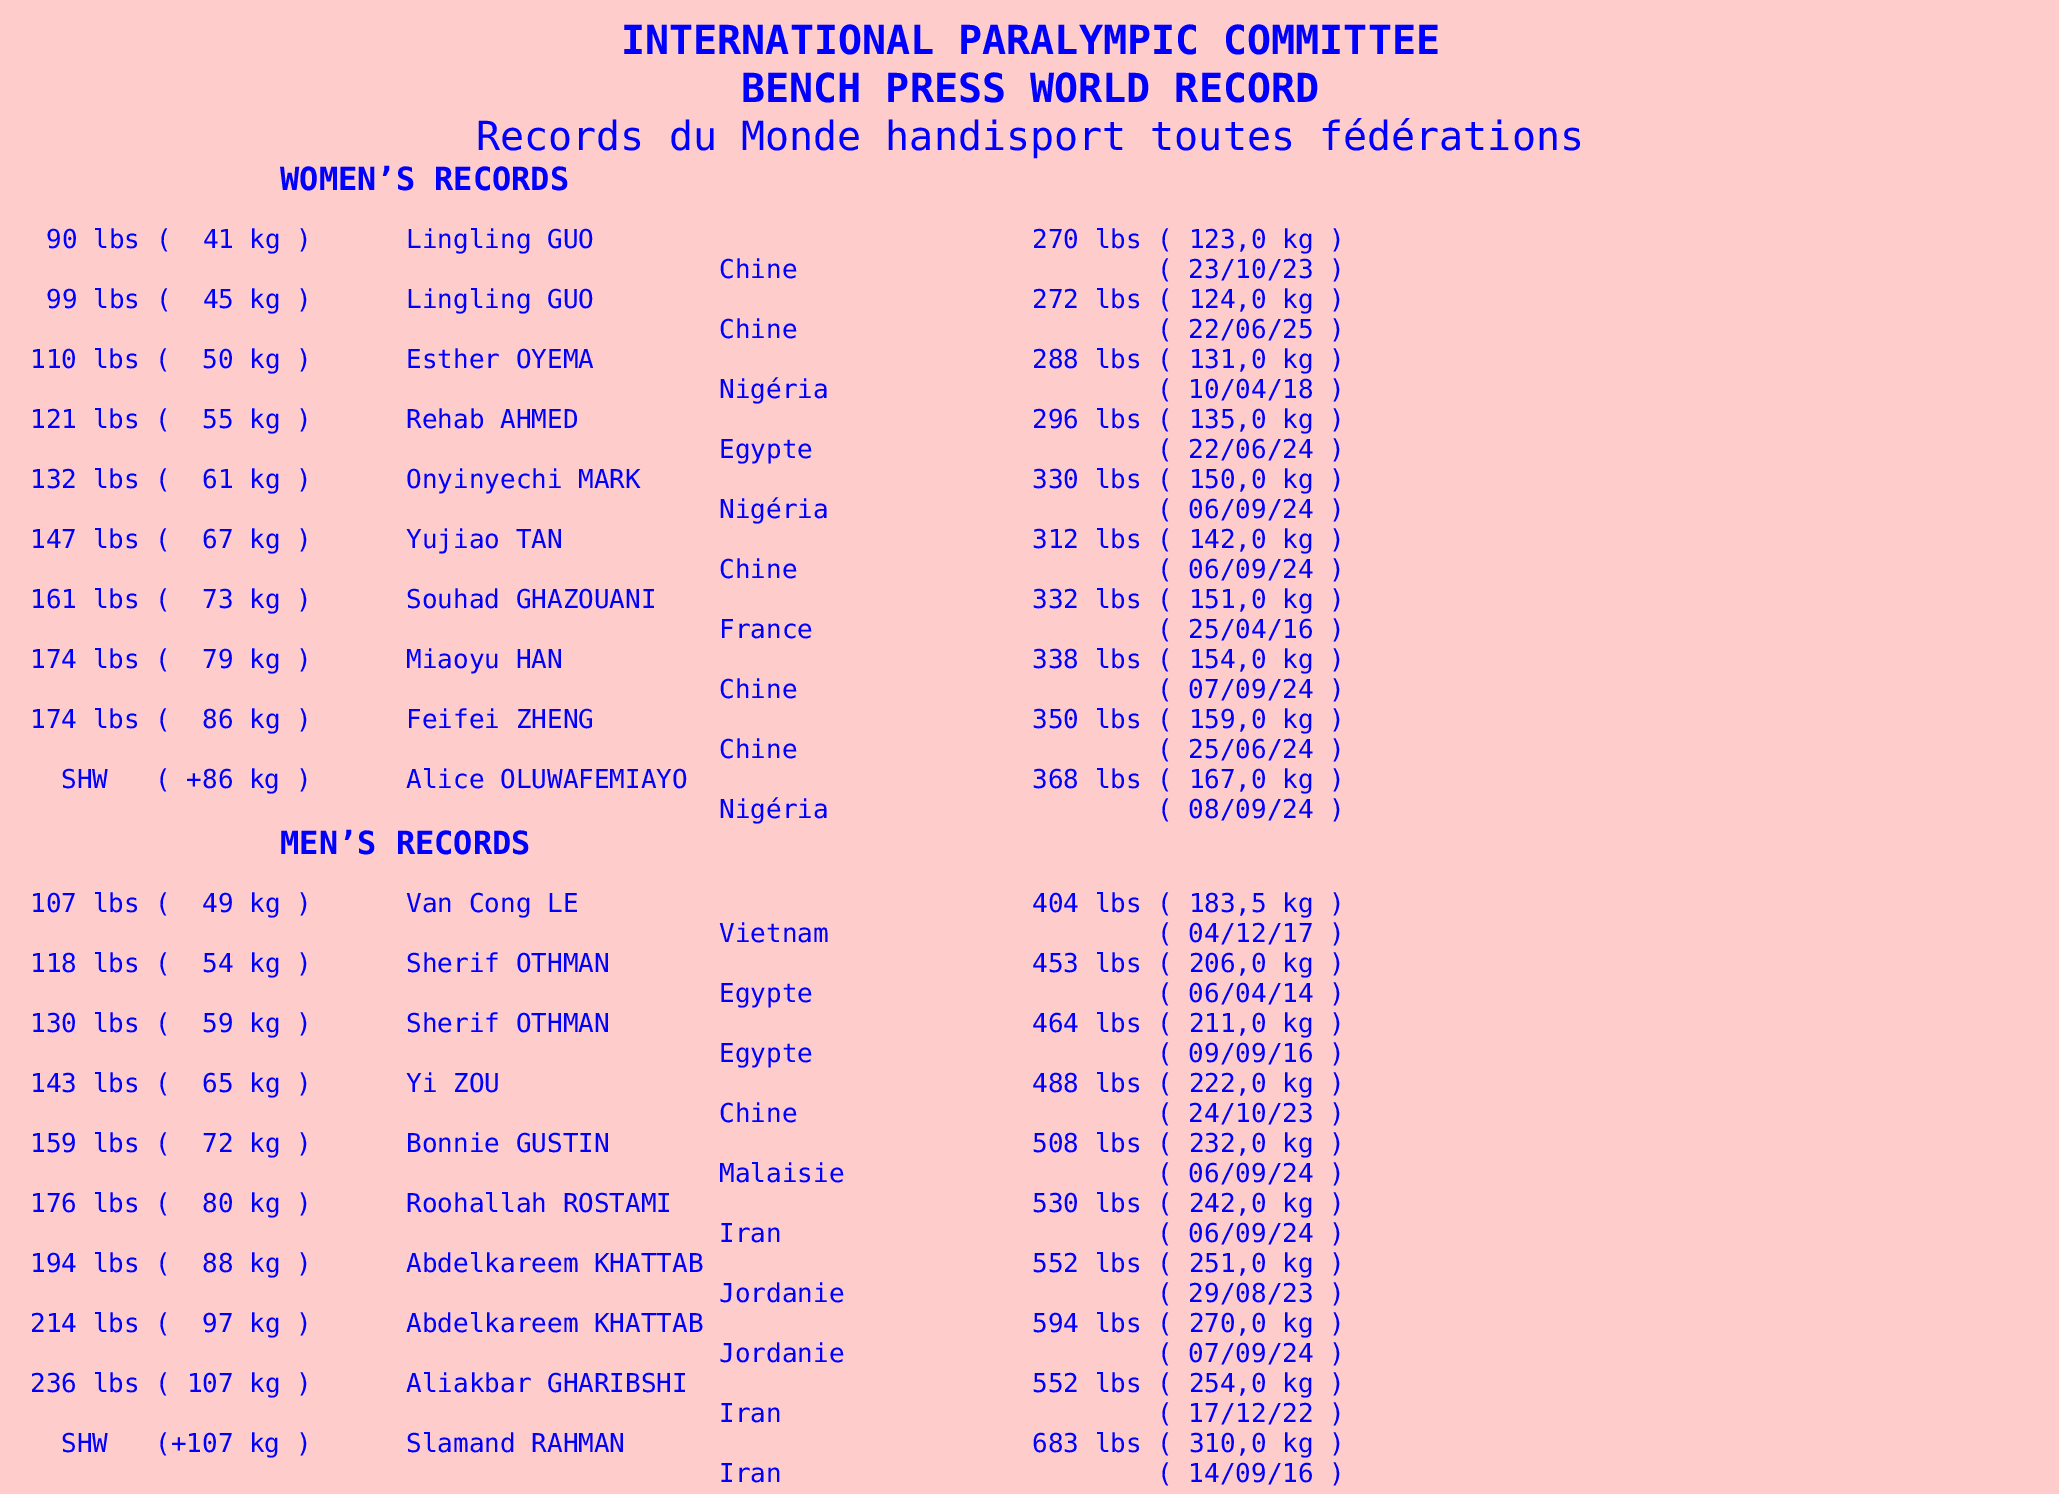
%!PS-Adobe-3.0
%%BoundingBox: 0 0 2059 1494
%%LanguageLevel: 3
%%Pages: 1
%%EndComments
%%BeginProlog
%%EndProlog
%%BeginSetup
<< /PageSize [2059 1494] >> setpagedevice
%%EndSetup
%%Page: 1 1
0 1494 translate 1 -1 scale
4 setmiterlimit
1 0.8 0.8 setrgbcolor
0 0 2059 1494 rectfill
/DejaVuSansMono-Bold [40 0 0 -40 0 0] selectfont
0 0 1 setrgbcolor
621 54 moveto (INTERNATIONAL PARALYMPIC COMMITTEE) show
741 102 moveto (BENCH PRESS WORLD RECORD) show
/DejaVuSansMono-Regular [40 0 0 -40 0 0] selectfont
476 150 moveto (Records du Monde handisport toutes fédérations) show
/DejaVuSansMono-Bold [32 0 0 -32 0 0] selectfont
280 190 moveto (WOMEN’S RECORDS) show
/DejaVuSansMono-Regular [26 0 0 -26 0 0] selectfont
46 248 moveto (90 lbs \(  41 kg \)) show
406 248 moveto (Lingling GUO) show
1032 248 moveto (270 lbs \( 123,0 kg \)) show
719 278 moveto (Chine) show
1157 278 moveto (\( 23/10/23 \)) show
46 308 moveto (99 lbs \(  45 kg \)) show
406 308 moveto (Lingling GUO) show
1032 308 moveto (272 lbs \( 124,0 kg \)) show
719 338 moveto (Chine) show
1157 338 moveto (\( 22/06/25 \)) show
30 368 moveto (110 lbs \(  50 kg \)) show
406 368 moveto (Esther OYEMA) show
1032 368 moveto (288 lbs \( 131,0 kg \)) show
719 398 moveto (Nigéria) show
1157 398 moveto (\( 10/04/18 \)) show
30 428 moveto (121 lbs \(  55 kg \)) show
406 428 moveto (Rehab AHMED) show
1032 428 moveto (296 lbs \( 135,0 kg \)) show
719 458 moveto (Egypte) show
1157 458 moveto (\( 22/06/24 \)) show
30 488 moveto (132 lbs \(  61 kg \)) show
406 488 moveto (Onyinyechi MARK) show
1032 488 moveto (330 lbs \( 150,0 kg \)) show
719 518 moveto (Nigéria) show
1157 518 moveto (\( 06/09/24 \)) show
30 548 moveto (147 lbs \(  67 kg \)) show
406 548 moveto (Yujiao TAN) show
1032 548 moveto (312 lbs \( 142,0 kg \)) show
719 578 moveto (Chine) show
1157 578 moveto (\( 06/09/24 \)) show
30 608 moveto (161 lbs \(  73 kg \)) show
406 608 moveto (Souhad GHAZOUANI) show
1032 608 moveto (332 lbs \( 151,0 kg \)) show
719 638 moveto (France) show
1157 638 moveto (\( 25/04/16 \)) show
30 668 moveto (174 lbs \(  79 kg \)) show
406 668 moveto (Miaoyu HAN) show
1032 668 moveto (338 lbs \( 154,0 kg \)) show
719 698 moveto (Chine) show
1157 698 moveto (\( 07/09/24 \)) show
30 728 moveto (174 lbs \(  86 kg \)) show
406 728 moveto (Feifei ZHENG) show
1032 728 moveto (350 lbs \( 159,0 kg \)) show
719 758 moveto (Chine) show
1157 758 moveto (\( 25/06/24 \)) show
61 788 moveto (SHW   \( +86 kg \)) show
406 788 moveto (Alice OLUWAFEMIAYO) show
1032 788 moveto (368 lbs \( 167,0 kg \)) show
719 818 moveto (Nigéria) show
1157 818 moveto (\( 08/09/24 \)) show
/DejaVuSansMono-Bold [32 0 0 -32 0 0] selectfont
280 854 moveto (MEN’S RECORDS) show
/DejaVuSansMono-Regular [26 0 0 -26 0 0] selectfont
30 912 moveto (107 lbs \(  49 kg \)) show
406 912 moveto (Van Cong LE) show
1032 912 moveto (404 lbs \( 183,5 kg \)) show
719 942 moveto (Vietnam) show
1157 942 moveto (\( 04/12/17 \)) show
30 972 moveto (118 lbs \(  54 kg \)) show
406 972 moveto (Sherif OTHMAN) show
1032 972 moveto (453 lbs \( 206,0 kg \)) show
719 1002 moveto (Egypte) show
1157 1002 moveto (\( 06/04/14 \)) show
30 1032 moveto (130 lbs \(  59 kg \)) show
406 1032 moveto (Sherif OTHMAN) show
1032 1032 moveto (464 lbs \( 211,0 kg \)) show
719 1062 moveto (Egypte) show
1157 1062 moveto (\( 09/09/16 \)) show
30 1092 moveto (143 lbs \(  65 kg \)) show
406 1092 moveto (Yi ZOU) show
1032 1092 moveto (488 lbs \( 222,0 kg \)) show
719 1122 moveto (Chine) show
1157 1122 moveto (\( 24/10/23 \)) show
30 1152 moveto (159 lbs \(  72 kg \)) show
406 1152 moveto (Bonnie GUSTIN) show
1032 1152 moveto (508 lbs \( 232,0 kg \)) show
719 1182 moveto (Malaisie) show
1157 1182 moveto (\( 06/09/24 \)) show
30 1212 moveto (176 lbs \(  80 kg \)) show
406 1212 moveto (Roohallah ROSTAMI) show
1032 1212 moveto (530 lbs \( 242,0 kg \)) show
719 1242 moveto (Iran) show
1157 1242 moveto (\( 06/09/24 \)) show
30 1272 moveto (194 lbs \(  88 kg \)) show
406 1272 moveto (Abdelkareem KHATTAB) show
1032 1272 moveto (552 lbs \( 251,0 kg \)) show
719 1302 moveto (Jordanie) show
1157 1302 moveto (\( 29/08/23 \)) show
30 1332 moveto (214 lbs \(  97 kg \)) show
406 1332 moveto (Abdelkareem KHATTAB) show
1032 1332 moveto (594 lbs \( 270,0 kg \)) show
719 1362 moveto (Jordanie) show
1157 1362 moveto (\( 07/09/24 \)) show
30 1392 moveto (236 lbs \( 107 kg \)) show
406 1392 moveto (Aliakbar GHARIBSHI) show
1032 1392 moveto (552 lbs \( 254,0 kg \)) show
719 1422 moveto (Iran) show
1157 1422 moveto (\( 17/12/22 \)) show
61 1452 moveto (SHW   \(+107 kg \)) show
406 1452 moveto (Slamand RAHMAN) show
1032 1452 moveto (683 lbs \( 310,0 kg \)) show
719 1482 moveto (Iran) show
1157 1482 moveto (\( 14/09/16 \)) show
showpage
%%EOF
